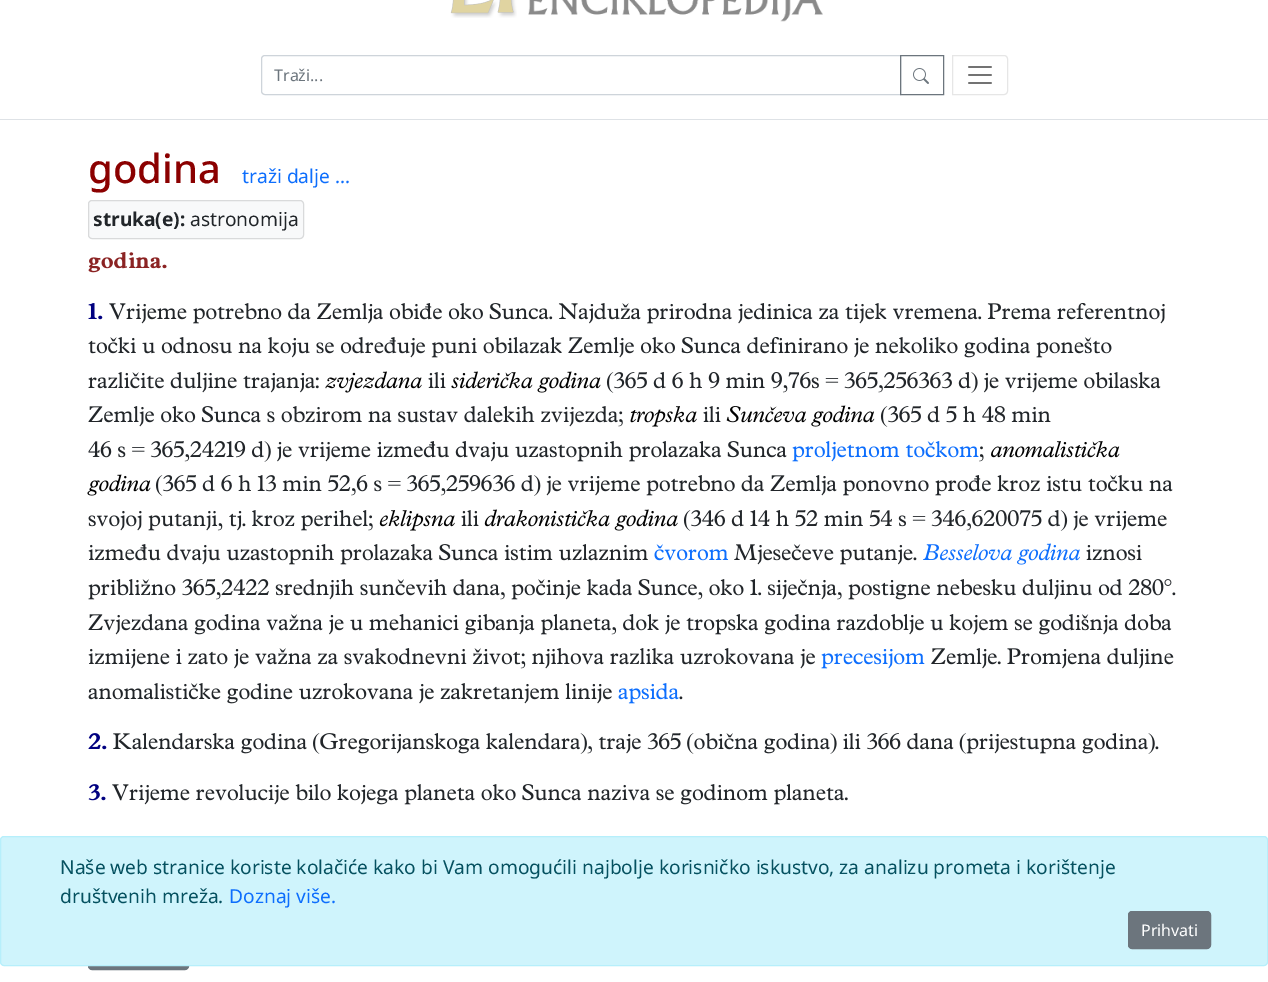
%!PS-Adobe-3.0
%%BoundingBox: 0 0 1268 982
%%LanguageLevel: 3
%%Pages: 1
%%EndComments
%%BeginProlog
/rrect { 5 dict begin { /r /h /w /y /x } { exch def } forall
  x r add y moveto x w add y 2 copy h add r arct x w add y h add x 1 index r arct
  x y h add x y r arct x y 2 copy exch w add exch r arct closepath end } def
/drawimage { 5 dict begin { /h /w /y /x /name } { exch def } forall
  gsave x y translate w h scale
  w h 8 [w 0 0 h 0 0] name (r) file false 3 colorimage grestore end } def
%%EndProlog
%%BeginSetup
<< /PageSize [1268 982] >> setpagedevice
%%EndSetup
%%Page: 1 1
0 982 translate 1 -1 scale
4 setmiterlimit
1 setgray
0 0 1268 982 rectfill
(images/1.raw) 450 0 67 18 drawimage
(images/2.raw) 528 0 295 22 drawimage
0.871 0.886 0.902 setrgbcolor
0 119 1268 1 rectfill
0.808 0.831 0.855 setrgbcolor
newpath 265 55.5 moveto 900.5 55.5 lineto 900.5 94.5 lineto 265 94.5 lineto 263 94.5 261.5 93 261.5 91 curveto 261.5 59 lineto 261.5 57 263 55.5 265 55.5 curveto closepath stroke
0.424 0.459 0.49 setrgbcolor
900.5 55.5 43 39 rectstroke
(images/3.raw) 913 68 16 16 drawimage
0.902 setgray
newpath 952.5 55.5 moveto 1004 55.5 lineto 1006 55.5 1007.5 57 1007.5 59 curveto 1007.5 91 lineto 1007.5 93 1006 94.5 1004 94.5 curveto 952.5 94.5 lineto closepath stroke
(images/4.raw) 968 66 24 18 drawimage
0.973 0.976 0.98 setrgbcolor
88.5 200.5 215 38 3.5 rrect gsave fill grestore
0.851 0.855 0.859 setrgbcolor
stroke
(images/5.raw) 88 252 79 21 drawimage
(images/6.raw) 88 303 15 17 drawimage
(images/7.raw) 109 303 1056 21 drawimage
(images/8.raw) 88 337 1024 21 drawimage
(images/9.raw) 88 372 231 21 drawimage
(images/10.raw) 325 371 97 22 drawimage
(images/11.raw) 428 372 18 16 drawimage
(images/12.raw) 451 371 150 22 drawimage
(images/13.raw) 606 372 555 21 drawimage
(images/14.raw) 88 406 535 21 drawimage
(images/15.raw) 630 406 67 21 drawimage
(images/11.raw) 703 406 18 16 drawimage
(images/16.raw) 726 405 149 22 drawimage
(images/17.raw) 880 406 171 21 drawimage
(images/18.raw) 88 441 699 21 drawimage
(images/19.raw) 792 441 187 21 drawimage
(images/20.raw) 979 446 5 16 drawimage
(images/21.raw) 991 441 129 17 drawimage
(images/22.raw) 87 474 64 22 drawimage
(images/23.raw) 155 475 1018 21 drawimage
(images/24.raw) 88 510 285 21 drawimage
(images/25.raw) 379 510 76 21 drawimage
(images/11.raw) 461 510 18 16 drawimage
(images/26.raw) 484 509 194 22 drawimage
(images/27.raw) 683 510 484 21 drawimage
(images/28.raw) 88 544 560 21 drawimage
(images/29.raw) 654 544 75 17 drawimage
(images/30.raw) 734 544 183 21 drawimage
(images/31.raw) 923 543 157 22 drawimage
(images/32.raw) 1086 545 56 16 drawimage
(images/33.raw) 88 579 1088 21 drawimage
(images/34.raw) 88 614 1084 21 drawimage
(images/35.raw) 88 648 727 21 drawimage
(images/36.raw) 821 649 104 20 drawimage
(images/37.raw) 931 648 243 21 drawimage
(images/38.raw) 88 683 524 21 drawimage
(images/39.raw) 618 683 61 21 drawimage
(images/40.raw) 679 696 4 4 drawimage
(images/41.raw) 88 733 19 17 drawimage
(images/42.raw) 113 733 1046 21 drawimage
(images/43.raw) 88 784 18 17 drawimage
(images/44.raw) 112 784 736 21 drawimage
0.424 0.459 0.49 setrgbcolor
88.5 932.5 100 37 3.5 rrect gsave fill grestore
stroke
0.812 0.957 0.988 setrgbcolor
0.5 836.5 1267 129 3.5 rrect gsave fill grestore
0.714 0.937 0.984 setrgbcolor
stroke
0.424 0.459 0.49 setrgbcolor
1128.5 911.5 82 37 3.5 rrect gsave fill grestore
stroke
/NotoSans-Regular [16 0 0 -16 0 0] selectfont
274 81 moveto (Traži...) show
/NotoSans-Medium [40 0 0 -40 0 0] selectfont
0.545 0 0 setrgbcolor
88 183 moveto (godina) show
/NotoSans-Regular [19.2 0 0 -19.2 0 0] selectfont
0.051 0.431 0.992 setrgbcolor
242 183 moveto (traži dalje ...) show
/NotoSans-Bold [19.2 0 0 -19.2 0 0] selectfont
0.129 0.145 0.161 setrgbcolor
93 226 moveto (struka\(e\):) show
/NotoSans-Regular [19.2 0 0 -19.2 0 0] selectfont
190 226 moveto (astronomija) show
0.02 0.318 0.376 setrgbcolor
60 874 moveto (Naše web stranice koriste kolačiće kako bi Vam omogućili najbolje korisničko iskustvo, za analizu prometa i korištenje) show
60 903 moveto (društvenih mreža.) show
0.051 0.431 0.992 setrgbcolor
229 903 moveto (Doznaj više.) show
/NotoSans-Regular [16 0 0 -16 0 0] selectfont
1 setgray
1141 936 moveto (Prihvati) show
showpage
%%EOF
